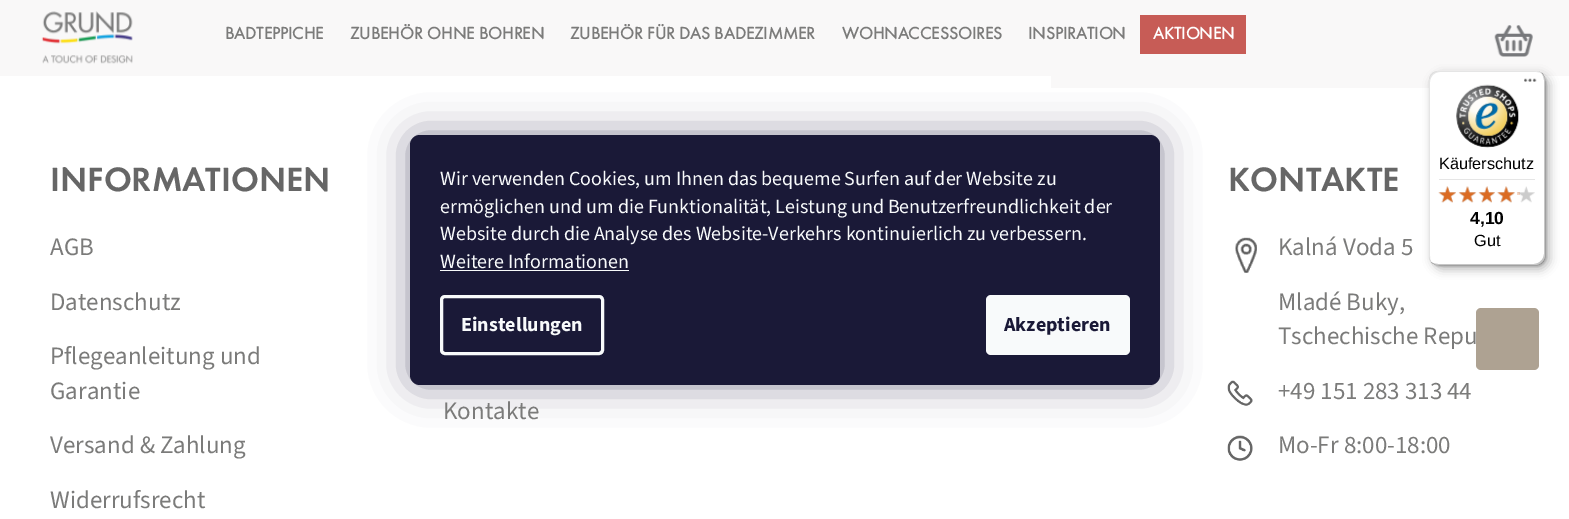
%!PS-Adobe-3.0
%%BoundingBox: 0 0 1569 519
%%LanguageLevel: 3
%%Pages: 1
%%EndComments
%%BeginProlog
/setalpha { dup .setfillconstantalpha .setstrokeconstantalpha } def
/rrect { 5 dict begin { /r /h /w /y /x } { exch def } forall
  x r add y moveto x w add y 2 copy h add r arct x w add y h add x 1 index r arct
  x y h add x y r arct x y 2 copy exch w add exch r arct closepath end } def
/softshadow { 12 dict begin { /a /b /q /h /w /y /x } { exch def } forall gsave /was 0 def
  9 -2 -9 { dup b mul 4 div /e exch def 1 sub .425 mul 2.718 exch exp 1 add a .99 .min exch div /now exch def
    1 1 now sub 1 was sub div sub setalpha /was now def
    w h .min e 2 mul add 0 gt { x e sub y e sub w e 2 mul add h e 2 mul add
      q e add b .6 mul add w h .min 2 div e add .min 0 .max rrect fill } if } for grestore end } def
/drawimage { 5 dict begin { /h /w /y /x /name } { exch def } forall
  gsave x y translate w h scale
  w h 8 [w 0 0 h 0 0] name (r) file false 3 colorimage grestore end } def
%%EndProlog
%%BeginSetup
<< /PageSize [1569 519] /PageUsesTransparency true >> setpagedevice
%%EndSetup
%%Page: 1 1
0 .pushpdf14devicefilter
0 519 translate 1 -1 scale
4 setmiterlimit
1 setgray
0 0 1569 519 rectfill
0.976 0.973 0.973 setrgbcolor
0 0 1569 76 rectfill
(images/1.raw) 41 11 92 53 drawimage
0.78 0.361 0.337 setrgbcolor
1140 15 106 39 rectfill
(images/2.raw) 1494 25 39 32 drawimage
0.976 0.973 0.973 setrgbcolor
1051 76 494 12 rectfill
(images/3.raw) 1235 237 22 36 drawimage
(images/4.raw) 1227 380 26 26 drawimage
(images/5.raw) 1227 435 26 26 drawimage
0 setgray
1433 75 116 194 10 5 0.15 softshadow
1430 73 116 193 10 1 0.15 softshadow
0.1 setalpha
newpath 1440 72 moveto 1536 72 lineto 1539 72 1541 73 1543 74 curveto 1541 72 1538 71 1535 71 curveto 1439 71 lineto 1433 71 1429 75 1429 81 curveto 1429 255 lineto 1429 257 1430 260 1431 261 curveto 1430 260 1430 258 1430 256 curveto 1430 82 lineto 1430 77 1434 72 1440 72 curveto closepath fill
0.2 setalpha
newpath 1431 262 moveto 1433 264 1436 265 1439 265 curveto 1535 265 lineto 1541 265 1545 261 1545 255 curveto 1545 81 lineto 1545 78 1544 75 1542 73 curveto 1543 75 1544 77 1544 80 curveto 1544 254 lineto 1544 259 1539 264 1534 264 curveto 1438 264 lineto 1435 264 1433 263 1431 262 curveto closepath fill
0.196 setgray
newpath 1433 263 moveto 1434 264 1437 265 1439 265 curveto 1535 265 lineto 1541 265 1545 261 1545 255 curveto 1545 81 lineto 1545 78 1544 75 1541 73 curveto 1543 75 1544 78 1544 80 curveto 1544 254 lineto 1544 260 1540 264 1534 264 curveto 1438 264 lineto 1436 264 1434 264 1433 263 curveto closepath fill
0.3 setalpha
1 setgray
newpath 1431 261 moveto 1433 264 1436 265 1439 265 curveto 1535 265 lineto 1541 265 1545 261 1545 255 curveto 1545 81 lineto 1545 75 1541 71 1535 71 curveto 1534 71 lineto 1540 71 1544 75 1544 81 curveto 1544 254 lineto 1544 260 1540 264 1534 264 curveto 1438 264 lineto 1436 264 1433 263 1431 261 curveto closepath fill
1 setalpha
0.106 0.098 0.224 setrgbcolor
410 135 750 250 10 19 0.5 softshadow
0.102 0.098 0.216 setrgbcolor
410 135 750 250 10 rrect fill
0.973 0.98 0.984 setrgbcolor
440 270 189 1 rectfill
3 setlinewidth
441.5 296.5 161 57 3.5 rrect stroke
986 295 144 60 5 rrect fill
0 setgray
1433 75 116 194 10 5 0.15 softshadow
1430 73 116 193 10 1 0.15 softshadow
1 setgray
1429 71 116 194 10 rrect fill
0.1 setalpha
0 setgray
newpath 1440 72 moveto 1536 72 lineto 1539 72 1541 73 1543 74 curveto 1541 72 1538 71 1535 71 curveto 1439 71 lineto 1433 71 1429 75 1429 81 curveto 1429 255 lineto 1429 257 1430 260 1431 261 curveto 1430 260 1430 258 1430 256 curveto 1430 82 lineto 1430 77 1434 72 1440 72 curveto closepath fill
0.2 setalpha
newpath 1431 262 moveto 1433 264 1436 265 1439 265 curveto 1535 265 lineto 1541 265 1545 261 1545 255 curveto 1545 81 lineto 1545 78 1544 75 1542 73 curveto 1543 75 1544 77 1544 80 curveto 1544 254 lineto 1544 259 1539 264 1534 264 curveto 1438 264 lineto 1435 264 1433 263 1431 262 curveto closepath fill
0.196 setgray
newpath 1433 263 moveto 1434 264 1437 265 1439 265 curveto 1535 265 lineto 1541 265 1545 261 1545 255 curveto 1545 81 lineto 1545 78 1544 75 1541 73 curveto 1543 75 1544 78 1544 80 curveto 1544 254 lineto 1544 260 1540 264 1534 264 curveto 1438 264 lineto 1436 264 1434 264 1433 263 curveto closepath fill
0.3 setalpha
1 setgray
newpath 1431 261 moveto 1433 264 1436 265 1439 265 curveto 1535 265 lineto 1541 265 1545 261 1545 255 curveto 1545 81 lineto 1545 75 1541 71 1535 71 curveto 1534 71 lineto 1540 71 1544 75 1544 81 curveto 1544 254 lineto 1544 260 1540 264 1534 264 curveto 1438 264 lineto 1436 264 1433 263 1431 261 curveto closepath fill
1 setalpha
(images/6.raw) 1524 78 13 4 drawimage
(images/7.raw) 1456 84 63 64 drawimage
0.898 setgray
1439 179 96 1 rectfill
(images/8.raw) 1438 186 18 17 drawimage
(images/9.raw) 1459 186 17 17 drawimage
(images/10.raw) 1479 186 16 17 drawimage
(images/11.raw) 1497 186 18 17 drawimage
(images/12.raw) 1517 186 18 17 drawimage
(images/13.raw) 1438 186 18 17 drawimage
(images/14.raw) 1458 186 19 17 drawimage
(images/15.raw) 1478 186 17 17 drawimage
(images/16.raw) 1497 186 18 17 drawimage
0.26 setalpha
0.863 0.408 0.122 setrgbcolor
1517 192 3 3 rectfill
1 setalpha
0.682 0.635 0.573 setrgbcolor
1476 308 63 62 5 rrect fill
/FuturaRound-Bold [17.5 0 0 -17.5 0 0] selectfont
0.482 0.482 0.478 setrgbcolor
225 39 moveto (BADTEPPICHE) show
350 39 moveto (ZUBEHÖR OHNE BOHREN) show
570 39 moveto (ZUBEHÖR FÜR DAS BADEZIMMER) show
842 39 moveto (WOHNACCESSOIRES) show
1028 39 moveto (INSPIRATION) show
1 setgray
1153 39 moveto (AKTIONEN) show
/FuturaRound-SemiBold [35 0 0 -35 0 0] selectfont
0.4 setgray
50 191 moveto (INFORMATIONEN) show
/SourceSans3-Regular [25 0 0 -25 0 0] selectfont
0.482 0.482 0.478 setrgbcolor
50 255 moveto (AGB) show
50 310 moveto (Datenschutz) show
50 364 moveto (Pflegeanleitung und) show
50 399 moveto (Garantie) show
50 453 moveto (Versand & Zahlung) show
50 508 moveto (Widerrufsrecht) show
443 419 moveto (Kontakte) show
/FuturaRound-SemiBold [35 0 0 -35 0 0] selectfont
0.4 setgray
1228 191 moveto (KONTAKTE) show
/SourceSans3-Regular [25 0 0 -25 0 0] selectfont
0.482 0.482 0.478 setrgbcolor
1278 255 moveto (Kalná Voda 5) show
1278 310 moveto (Mladé Buky,) show
1278 344 moveto (Tschechische Repu) show
1278 399 moveto (+49 151 283 313 44) show
1278 453 moveto (Mo-Fr 8:00-18:00) show
/SourceSans3-Regular [20 0 0 -20 0 0] selectfont
0.973 0.98 0.984 setrgbcolor
440 185 moveto (Wir verwenden Cookies, um Ihnen das bequeme Surfen auf der Website zu) show
440 213 moveto (ermöglichen und um die Funktionalität, Leistung und Benutzerfreundlichkeit der) show
440 240 moveto (Website durch die Analyse des Website-Verkehrs kontinuierlich zu verbessern.) show
440 268 moveto (Weitere Informationen) show
/SourceSans3-Bold [20 0 0 -20 0 0] selectfont
461 331 moveto (Einstellungen) show
0.102 0.098 0.216 setrgbcolor
1004 331 moveto (Akzeptieren) show
/LiberationSans-Regular [16.25 0 0 -16.25 0 0] selectfont
0 setgray
1439 169 moveto (Käuferschutz) show
/LiberationSans-Bold [17.5 0 0 -17.5 0 0] selectfont
1470 224 moveto (4,10) show
/LiberationSans-Regular [16.25 0 0 -16.25 0 0] selectfont
1474 246 moveto (Gut) show
.poppdf14devicefilter showpage
%%EOF
